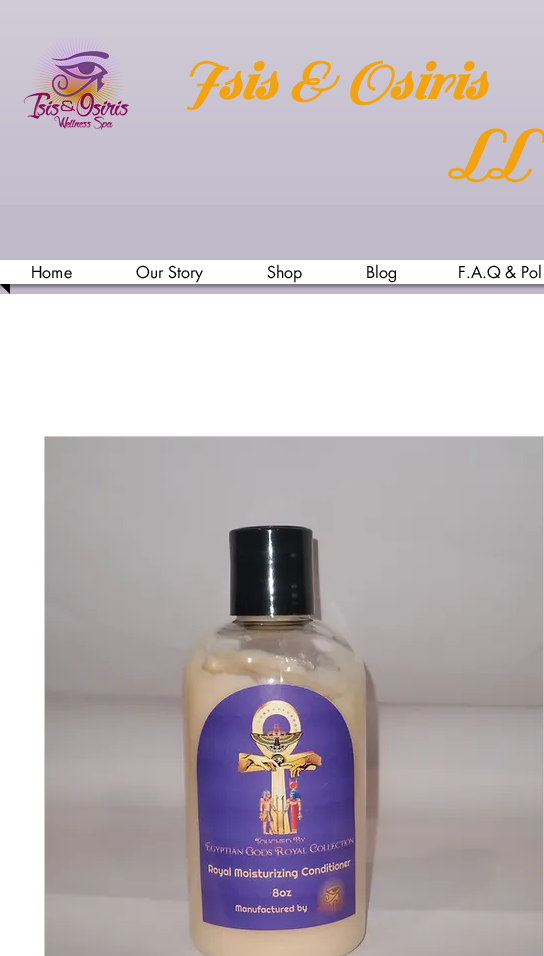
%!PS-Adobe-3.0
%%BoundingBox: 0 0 544 956
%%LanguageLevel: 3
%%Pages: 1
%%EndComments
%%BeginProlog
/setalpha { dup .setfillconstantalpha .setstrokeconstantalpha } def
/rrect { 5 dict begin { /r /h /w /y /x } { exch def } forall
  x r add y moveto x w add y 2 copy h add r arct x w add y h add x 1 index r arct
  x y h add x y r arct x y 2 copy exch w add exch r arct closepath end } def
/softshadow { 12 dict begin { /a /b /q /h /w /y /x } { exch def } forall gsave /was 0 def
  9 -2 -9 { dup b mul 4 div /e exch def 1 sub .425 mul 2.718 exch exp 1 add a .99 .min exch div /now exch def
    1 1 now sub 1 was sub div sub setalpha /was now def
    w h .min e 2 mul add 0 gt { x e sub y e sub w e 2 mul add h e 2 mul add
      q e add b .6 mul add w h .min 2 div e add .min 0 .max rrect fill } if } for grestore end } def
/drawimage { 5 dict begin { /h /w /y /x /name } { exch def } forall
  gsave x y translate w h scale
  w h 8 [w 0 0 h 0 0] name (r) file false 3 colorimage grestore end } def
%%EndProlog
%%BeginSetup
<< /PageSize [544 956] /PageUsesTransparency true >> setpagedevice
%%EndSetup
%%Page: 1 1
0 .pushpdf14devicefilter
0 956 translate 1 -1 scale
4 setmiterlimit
1 setgray
0 0 544 956 rectfill
0.753 0.725 0.788 setrgbcolor
0 0 544 294 rectfill
(images/1.raw) 0 0 544 205 drawimage
(images/2.raw) 23 36 106 94 drawimage
0 setgray
newpath 0 284 moveto 10 284 lineto 10 294 lineto closepath fill
0 263 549 24 0 1.5 0.37 softshadow
1 setgray
0 260 544 24 rectfill
0.8 setgray
44.5 436.5 499 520 rectstroke
(images/3.raw) 45 437 498 519 drawimage
/Sail-BoldItalic [60 0 0 -60 0 0] selectfont
0.949 0.639 0.059 setrgbcolor
179 99 moveto (Isis & Osiris) show
454 170 moveto (LL) show
/futura-Regular [16 0 0 -16 0 0] selectfont
0 setgray
31 278 moveto (Home) show
136 278 moveto (Our Story) show
267 278 moveto (Shop) show
366 278 moveto (Blog) show
458 278 moveto (F.A.Q & Pol) show
.poppdf14devicefilter showpage
%%EOF
